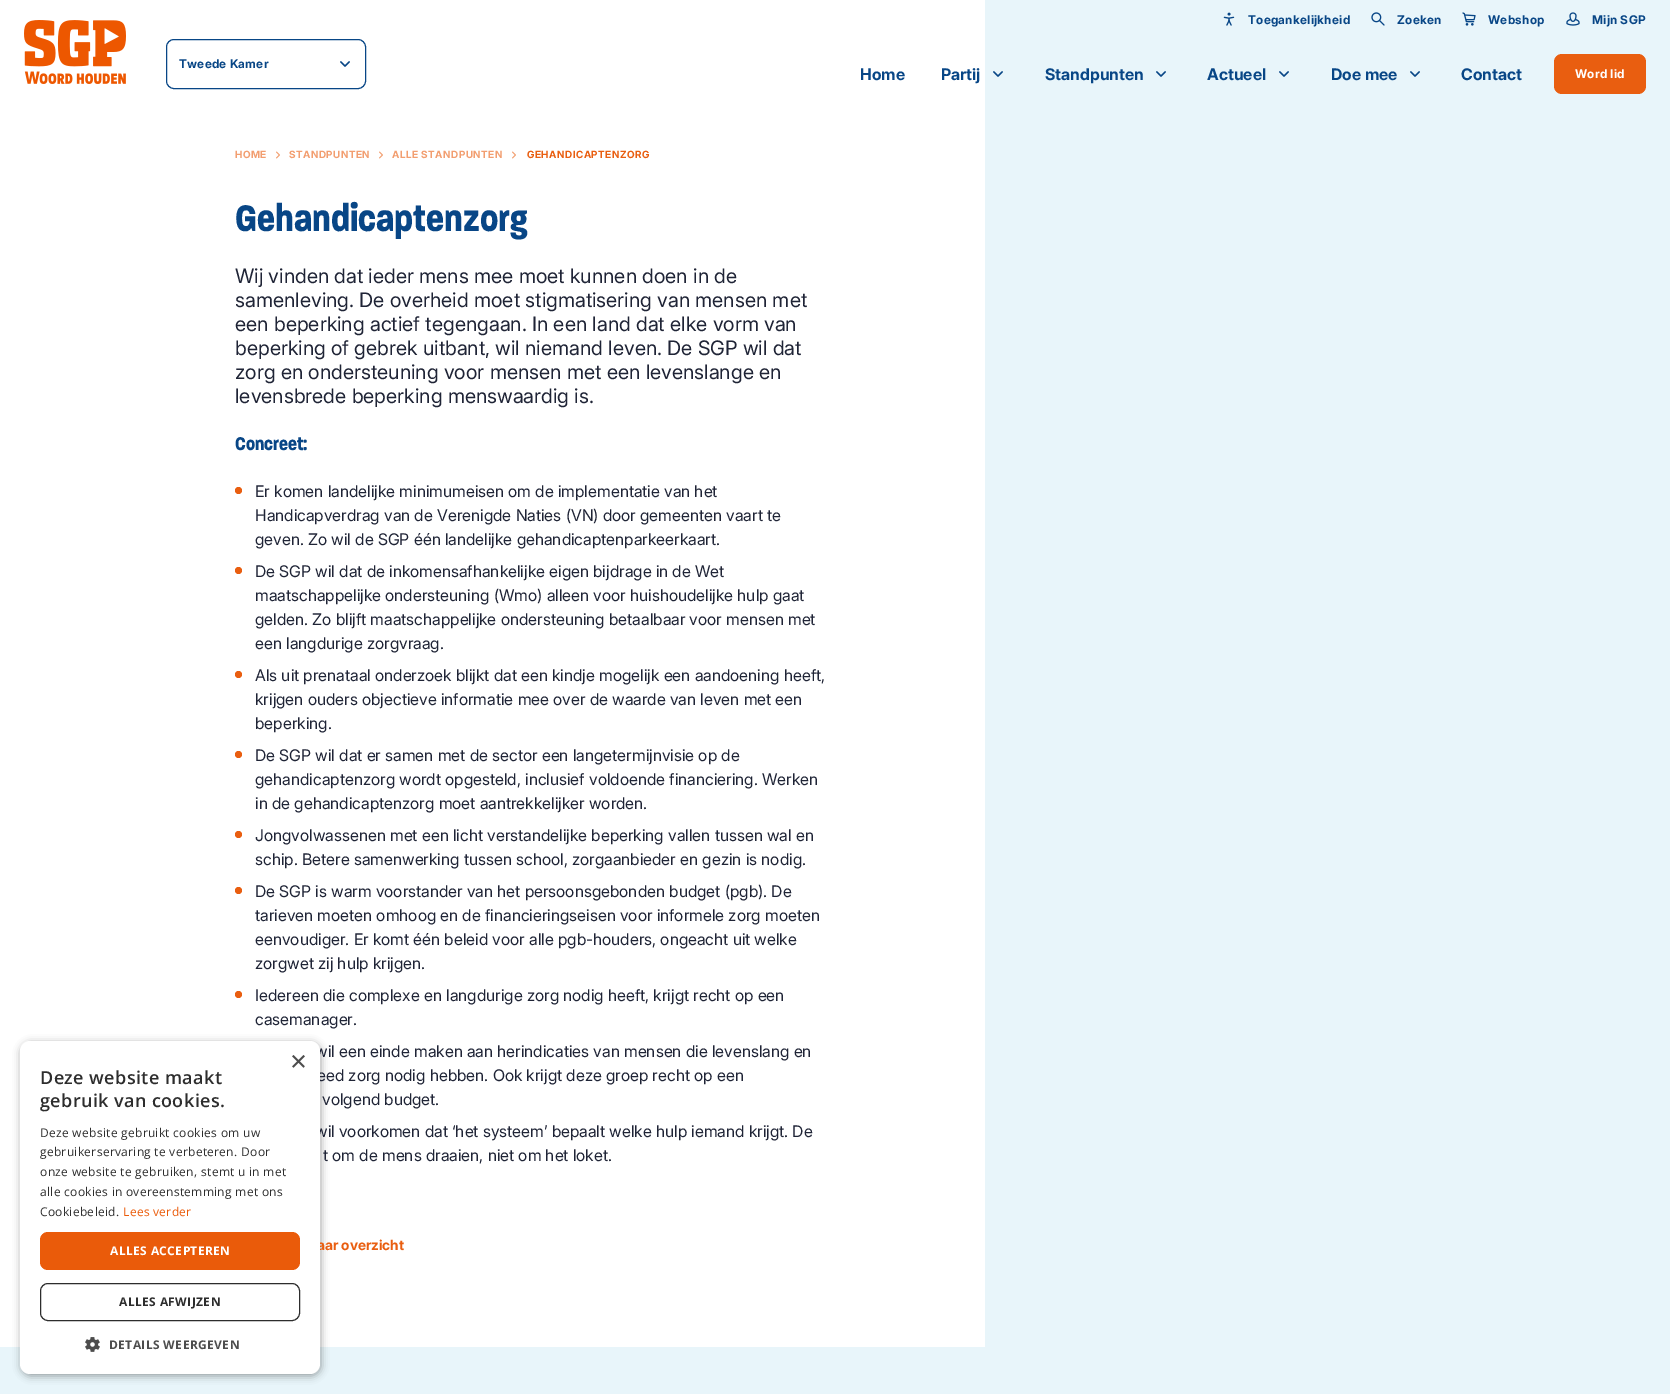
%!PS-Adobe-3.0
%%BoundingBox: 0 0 1670 1394
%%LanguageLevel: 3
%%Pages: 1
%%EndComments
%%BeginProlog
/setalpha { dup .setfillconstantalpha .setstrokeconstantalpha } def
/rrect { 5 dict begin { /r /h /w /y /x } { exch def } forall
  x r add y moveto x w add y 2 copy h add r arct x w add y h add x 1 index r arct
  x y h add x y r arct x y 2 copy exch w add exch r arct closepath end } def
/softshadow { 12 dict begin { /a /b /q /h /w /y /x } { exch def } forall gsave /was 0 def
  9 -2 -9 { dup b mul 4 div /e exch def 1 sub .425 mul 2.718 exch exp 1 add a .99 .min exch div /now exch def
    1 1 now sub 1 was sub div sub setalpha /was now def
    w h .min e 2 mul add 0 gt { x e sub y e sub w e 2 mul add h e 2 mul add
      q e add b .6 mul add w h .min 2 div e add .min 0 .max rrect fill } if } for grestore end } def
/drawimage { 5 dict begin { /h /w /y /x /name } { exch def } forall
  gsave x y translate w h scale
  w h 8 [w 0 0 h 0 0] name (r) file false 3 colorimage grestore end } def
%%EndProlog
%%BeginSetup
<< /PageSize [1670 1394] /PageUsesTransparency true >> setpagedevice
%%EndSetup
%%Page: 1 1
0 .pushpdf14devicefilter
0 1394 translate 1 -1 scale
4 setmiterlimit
1 setgray
0 0 1670 1394 rectfill
0.91 0.961 0.98 setrgbcolor
0 1347 1670 47 rectfill
0 setgray
21 1043 300 333 10 4 0.35 softshadow
0.91 0.961 0.98 setrgbcolor
985 0 685 1347 rectfill
(images/2.raw) 1223 12 12 14 drawimage
(images/3.raw) 1371 12 14 14 drawimage
(images/4.raw) 1462 12 14 14 drawimage
(images/5.raw) 1566 12 14 14 drawimage
(images/6.raw) 24 20 102 64 drawimage
0.031 0.275 0.525 setrgbcolor
166.5 39.5 199 49 7.5 rrect stroke
(images/7.raw) 340 61 10 6 drawimage
(images/8.raw) 993 71 10 6 drawimage
(images/8.raw) 1156 71 10 6 drawimage
(images/8.raw) 1279 71 10 6 drawimage
(images/8.raw) 1410 71 10 6 drawimage
0.914 0.369 0.063 setrgbcolor
1554 54 92 40 8 rrect fill
(images/9.raw) 276 151 4 8 drawimage
(images/9.raw) 379 151 4 8 drawimage
(images/9.raw) 512 151 4 8 drawimage
newpath 238.5 490.5 3.5 0 360 arc closepath fill
newpath 238.5 570.5 3.5 0 360 arc closepath fill
newpath 238.5 674.5 3.5 0 360 arc closepath fill
newpath 238.5 754.5 3.5 0 360 arc closepath fill
newpath 238.5 834.5 3.5 0 360 arc closepath fill
newpath 238.5 890.5 3.5 0 360 arc closepath fill
newpath 238.5 994.5 3.5 0 360 arc closepath fill
/Inter-Bold [12 0 0 -12 0 0] selectfont
0.031 0.275 0.525 setrgbcolor
1248 24 moveto 0.3 0 (Toegankelijkheid) ashow
1397 24 moveto 0.3 0 (Zoeken) ashow
1488 24 moveto 0.3 0 (Webshop) ashow
1592 24 moveto 0.3 0 (Mijn SGP) ashow
179 68 moveto 0.3 0 (Tweede Kamer) ashow
/Inter-Bold [16 0 0 -16 0 0] selectfont
860 80 moveto (Home) show
941 80 moveto (Partij) show
1045 80 moveto (Standpunten) show
1207 80 moveto (Actueel) show
1331 80 moveto (Doe mee) show
1461 80 moveto (Contact) show
/Inter-Bold [12 0 0 -12 0 0] selectfont
1 setgray
1575 78 moveto 0.3 0 (Word lid) ashow
/Inter-Bold [10 0 0 -10 0 0] selectfont
0.949 0.62 0.439 setrgbcolor
235 158 moveto 0.5 0 (HOME) ashow
289 158 moveto 0.5 0 (STANDPUNTEN) ashow
392 158 moveto 0.5 0 (ALLE STANDPUNTEN) ashow
0.914 0.369 0.063 setrgbcolor
527 158 moveto 0.5 0 (GEHANDICAPTENZORG) ashow
/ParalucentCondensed-Bold [40 0 0 -40 0 0] selectfont
0.031 0.275 0.525 setrgbcolor
235 231 moveto (Gehandicaptenzorg) show
/Inter-Regular [20 0 0 -20 0 0] selectfont
0.122 0.141 0.212 setrgbcolor
235 283 moveto (Wij vinden dat ieder mens mee moet kunnen doen in de) show
235 307 moveto (samenleving. De overheid moet stigmatisering van mensen met) show
235 331 moveto (een beperking actief tegengaan. In een land dat elke vorm van) show
235 355 moveto (beperking of gebrek uitbant, wil niemand leven. De SGP wil dat) show
235 379 moveto (zorg en ondersteuning voor mensen met een levenslange en) show
235 403 moveto (levensbrede beperking menswaardig is.) show
/ParalucentCondensed-Bold [20 0 0 -20 0 0] selectfont
0.031 0.275 0.525 setrgbcolor
235 450 moveto (Concreet:) show
/Inter-Regular [16 0 0 -16 0 0] selectfont
0.122 0.141 0.212 setrgbcolor
255 497 moveto (Er komen landelijke minimumeisen om de implementatie van het) show
255 521 moveto (Handicapverdrag van de Verenigde Naties \(VN\) door gemeenten vaart te) show
255 545 moveto (geven. Zo wil de SGP één landelijke gehandicaptenparkeerkaart.) show
255 577 moveto (De SGP wil dat de inkomensafhankelijke eigen bijdrage in de Wet) show
255 601 moveto (maatschappelijke ondersteuning \(Wmo\) alleen voor huishoudelijke hulp gaat) show
255 625 moveto (gelden. Zo blijft maatschappelijke ondersteuning betaalbaar voor mensen met) show
255 649 moveto (een langdurige zorgvraag.) show
255 681 moveto (Als uit prenataal onderzoek blijkt dat een kindje mogelijk een aandoening heeft,) show
255 705 moveto (krijgen ouders objectieve informatie mee over de waarde van leven met een) show
255 729 moveto (beperking.) show
255 761 moveto (De SGP wil dat er samen met de sector een langetermijnvisie op de) show
255 785 moveto (gehandicaptenzorg wordt opgesteld, inclusief voldoende financiering. Werken) show
255 809 moveto (in de gehandicaptenzorg moet aantrekkelijker worden.) show
255 841 moveto (Jongvolwassenen met een licht verstandelijke beperking vallen tussen wal en) show
255 865 moveto (schip. Betere samenwerking tussen school, zorgaanbieder en gezin is nodig.) show
255 897 moveto (De SGP is warm voorstander van het persoonsgebonden budget \(pgb\). De) show
255 921 moveto (tarieven moeten omhoog en de financieringseisen voor informele zorg moeten) show
255 945 moveto (eenvoudiger. Er komt één beleid voor alle pgb-houders, ongeacht uit welke) show
255 969 moveto (zorgwet zij hulp krijgen.) show
255 1001 moveto (Iedereen die complexe en langdurige zorg nodig heeft, krijgt recht op een) show
255 1025 moveto (casemanager.) show
315 1057 moveto (wil een einde maken aan herindicaties van mensen die levenslang en) show
317 1081 moveto (eed zorg nodig hebben. Ook krijgt deze groep recht op een) show
322 1105 moveto (volgend budget.) show
315 1137 moveto (wil voorkomen dat ‘het systeem’ bepaalt welke hulp iemand krijgt. De) show
323 1161 moveto (t om de mens draaien, niet om het loket.) show
/Inter-Bold [14 0 0 -14 0 0] selectfont
0.914 0.369 0.063 setrgbcolor
317 1250 moveto (aar overzicht) show
1 setgray
20 1041 300 333 10 rrect fill
/LiberationSans-Regular [29 0 0 -29 0 0] selectfont
0.302 setgray
290 1071 moveto (×) show
(images/1.raw) 85 1337 15 15 drawimage
/OpenSans-Bold [12 0 0 -12 0 0] selectfont
109 1349 moveto 0.4 0 (DETAILS WEERGEVEN) ashow
0.176 setgray
40.5 1283.5 259 37 7.5 rrect stroke
119 1306 moveto 0.4 0 (ALLES AFWIJZEN) ashow
0.918 0.357 0.039 setrgbcolor
40 1232 260 38 8 rrect fill
1 setgray
110 1255 moveto 0.4 0 (ALLES ACCEPTEREN) ashow
/OpenSans-Regular [12 0 0 -12 0 0] selectfont
0.918 0.357 0.039 setrgbcolor
123 1216 moveto 0.3 0 (Lees verder) ashow
0.176 setgray
40 1216 moveto 0.3 0 (Cookiebeleid.) ashow
40 1196 moveto 0.3 0 (alle cookies in overeenstemming met ons) ashow
40 1176 moveto 0.3 0 (onze website te gebruiken, stemt u in met) ashow
40 1156 moveto 0.3 0 (gebruikerservaring te verbeteren. Door) ashow
40 1137 moveto 0.3 0 (Deze website gebruikt cookies om uw) ashow
/OpenSans-SemiBold [18 0 0 -18 0 0] selectfont
40 1107 moveto 0.4 0 (gebruik van cookies.) ashow
40 1084 moveto 0.4 0 (Deze website maakt) ashow
.poppdf14devicefilter showpage
%%EOF
